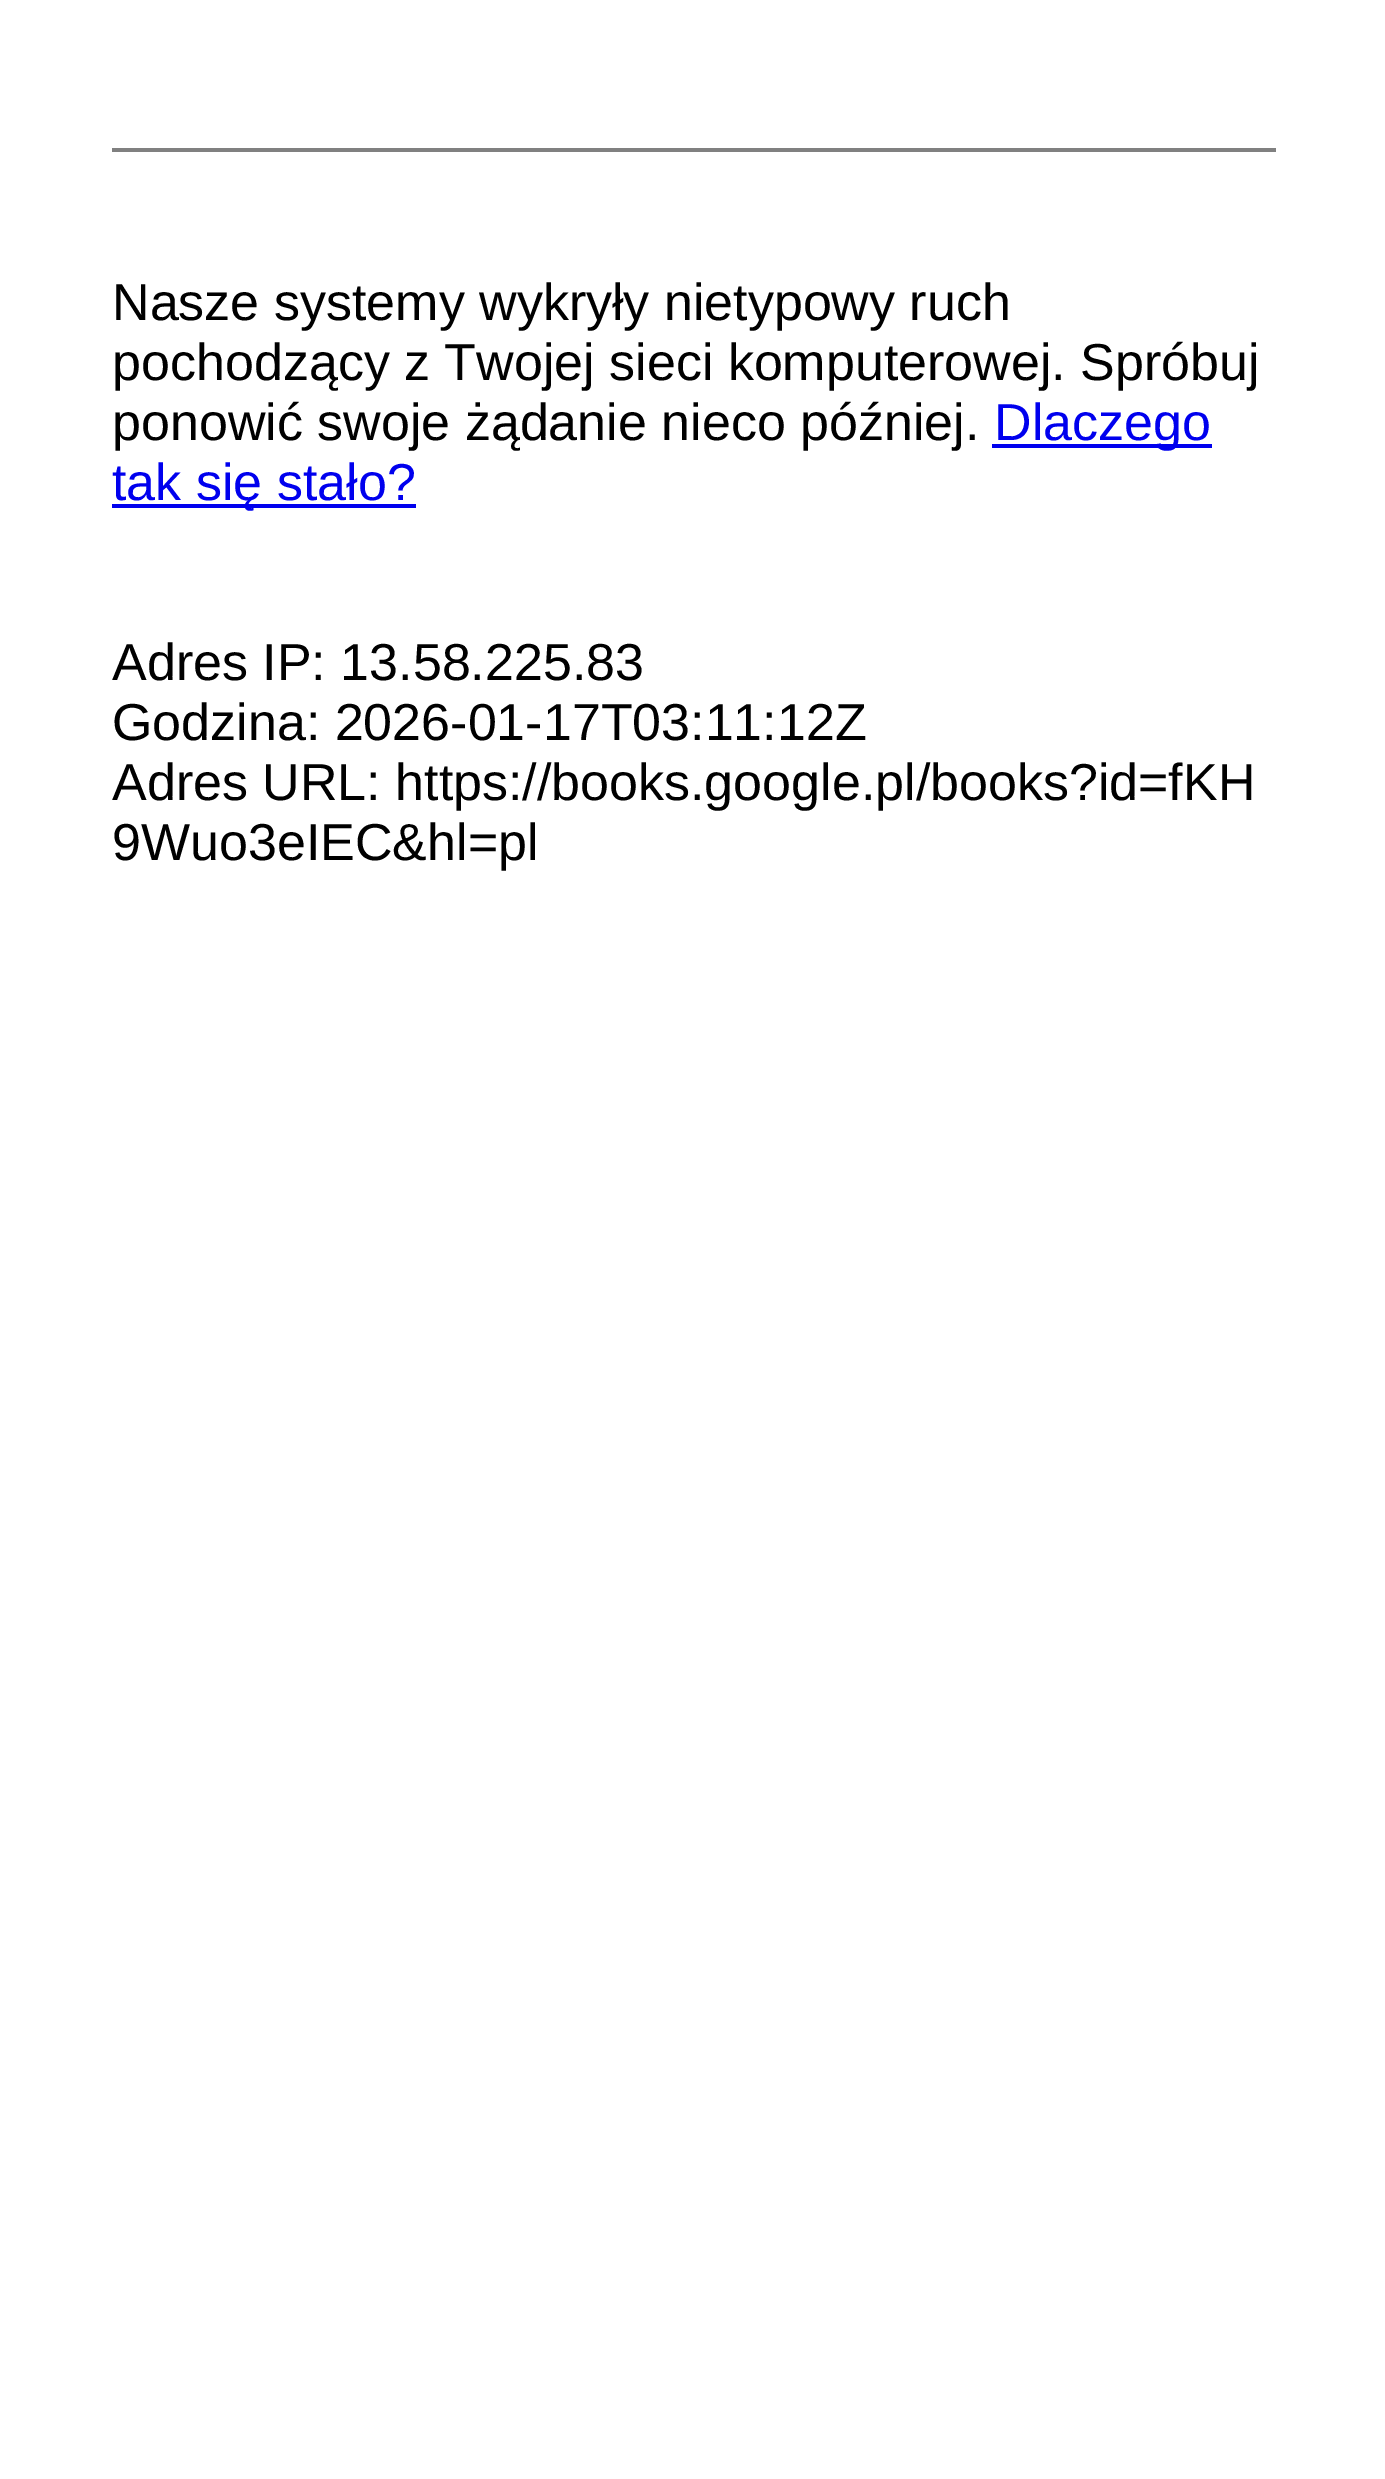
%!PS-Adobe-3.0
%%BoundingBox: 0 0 1385 2479
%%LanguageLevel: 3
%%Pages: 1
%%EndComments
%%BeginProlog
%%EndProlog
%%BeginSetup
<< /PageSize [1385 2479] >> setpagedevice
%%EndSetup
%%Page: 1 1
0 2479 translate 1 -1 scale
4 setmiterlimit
1 setgray
0 0 1385 2479 rectfill
0.502 setgray
112 148 1164 4 rectfill
0 0 0.933 setrgbcolor
992 444 220 4 rectfill
112 504 304 4 rectfill
/LiberationSans-Regular [52 0 0 -52 0 0] selectfont
0 setgray
112 320 moveto (Nasze systemy wykryły nietypowy ruch) show
112 380 moveto (pochodzący z Twojej sieci komputerowej. Spróbuj) show
112 440 moveto (ponowić swoje żądanie nieco później.) show
0 0 0.933 setrgbcolor
994 440 moveto (Dlaczego) show
112 500 moveto (tak się stało?) show
0 setgray
112 680 moveto (Adres IP: 13.58.225.83) show
112 740 moveto (Godzina: 2026-01-17T03:11:12Z) show
112 800 moveto (Adres URL: https://books.google.pl/books?id=fKH) show
112 860 moveto (9Wuo3eIEC&hl=pl) show
showpage
%%EOF
